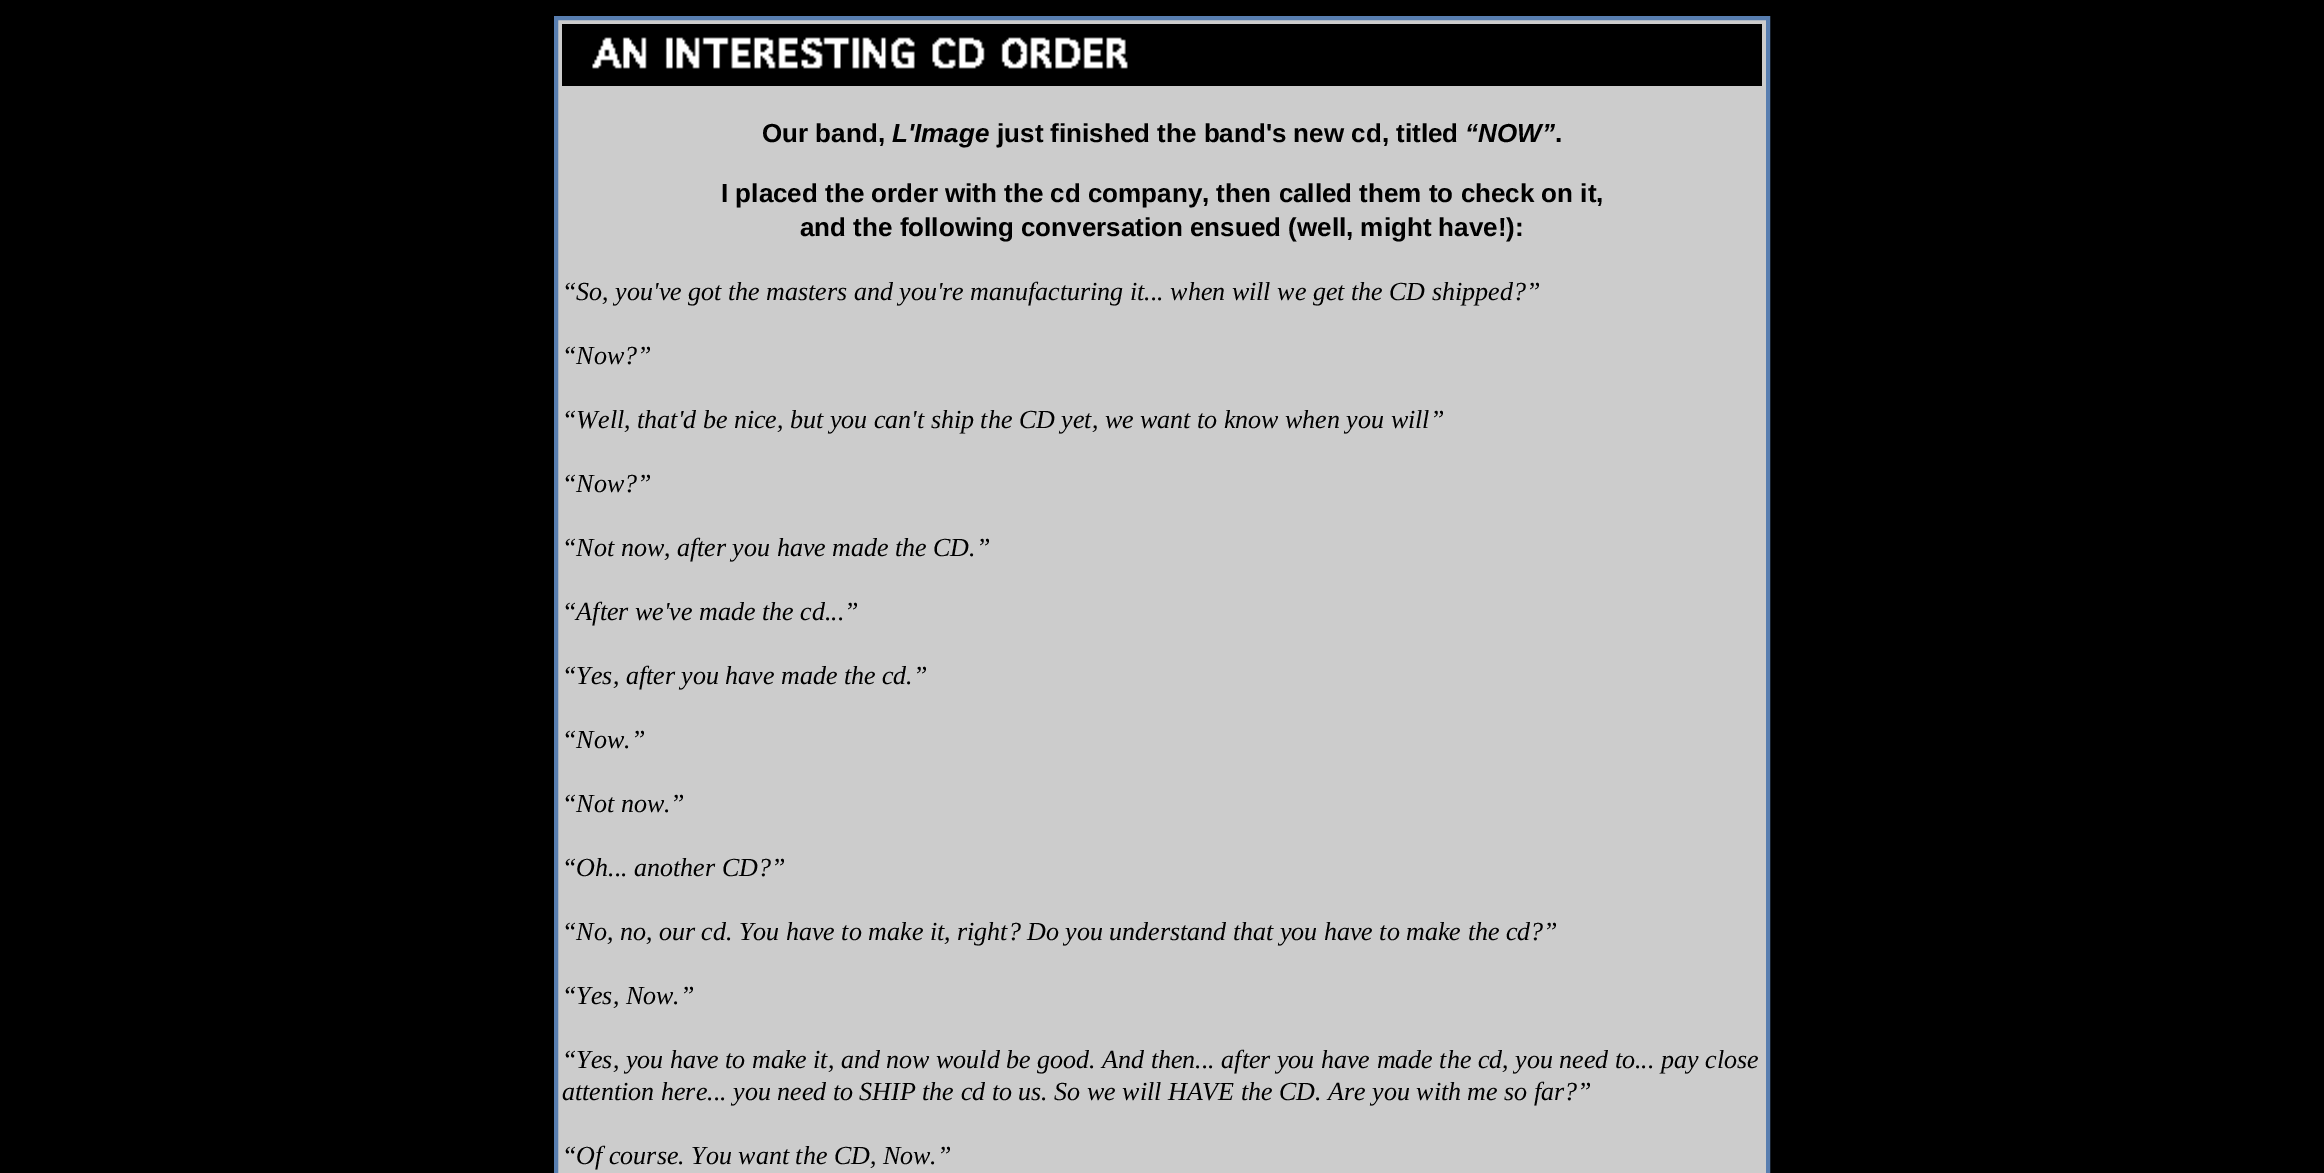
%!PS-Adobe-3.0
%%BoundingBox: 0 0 2324 1173
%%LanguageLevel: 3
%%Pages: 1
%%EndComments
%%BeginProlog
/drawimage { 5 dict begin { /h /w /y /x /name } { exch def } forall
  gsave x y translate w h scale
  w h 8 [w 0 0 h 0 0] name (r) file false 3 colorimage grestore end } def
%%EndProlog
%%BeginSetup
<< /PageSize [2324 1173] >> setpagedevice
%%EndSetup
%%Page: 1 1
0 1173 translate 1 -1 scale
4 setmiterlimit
0 setgray
0 0 2324 1173 rectfill
0.8 setgray
558 20 1208 1153 rectfill
0.345 0.494 0.69 setrgbcolor
2 setlinewidth
555 17 1214 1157 rectstroke
557 19 1210 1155 rectstroke
0 setgray
562 24 1200 62 rectfill
(images/1.raw) 592 37 536 32 drawimage
/LiberationSans-Bold [26 0 0 -26 0 0] selectfont
762 142 moveto (Our band,) show
/LiberationSans-BoldItalic [26 0 0 -26 0 0] selectfont
892 142 moveto (L'Image) show
/LiberationSans-Bold [26 0 0 -26 0 0] selectfont
997 142 moveto (just finished the band's new cd, titled) show
/LiberationSans-BoldItalic [26 0 0 -26 0 0] selectfont
1465 142 moveto (“NOW”) show
/LiberationSans-Bold [26 0 0 -26 0 0] selectfont
1555 142 moveto (.) show
721 202 moveto (I placed the order with the cd company, then called them to check on it,) show
800 236 moveto (and the following conversation ensued \(well, might have!\):) show
/LiberationSerif-Italic [26 0 0 -26 0 0] selectfont
562 300 moveto (“So, you've got the masters and you're manufacturing it... when will we get the CD shipped?”) show
562 364 moveto (“Now?”) show
562 428 moveto (“Well, that'd be nice, but you can't ship the CD yet, we want to know when you will”) show
562 492 moveto (“Now?”) show
562 556 moveto (“Not now, after you have made the CD.”) show
562 620 moveto (“After we've made the cd...”) show
562 684 moveto (“Yes, after you have made the cd.”) show
562 748 moveto (“Now.”) show
562 812 moveto (“Not now.”) show
562 876 moveto (“Oh... another CD?”) show
562 940 moveto (“No, no, our cd. You have to make it, right? Do you understand that you have to make the cd?”) show
562 1004 moveto (“Yes, Now.”) show
562 1068 moveto (“Yes, you have to make it, and now would be good. And then... after you have made the cd, you need to... pay close) show
562 1100 moveto (attention here... you need to SHIP the cd to us. So we will HAVE the CD. Are you with me so far?”) show
562 1164 moveto (“Of course. You want the CD, Now.”) show
showpage
%%EOF
